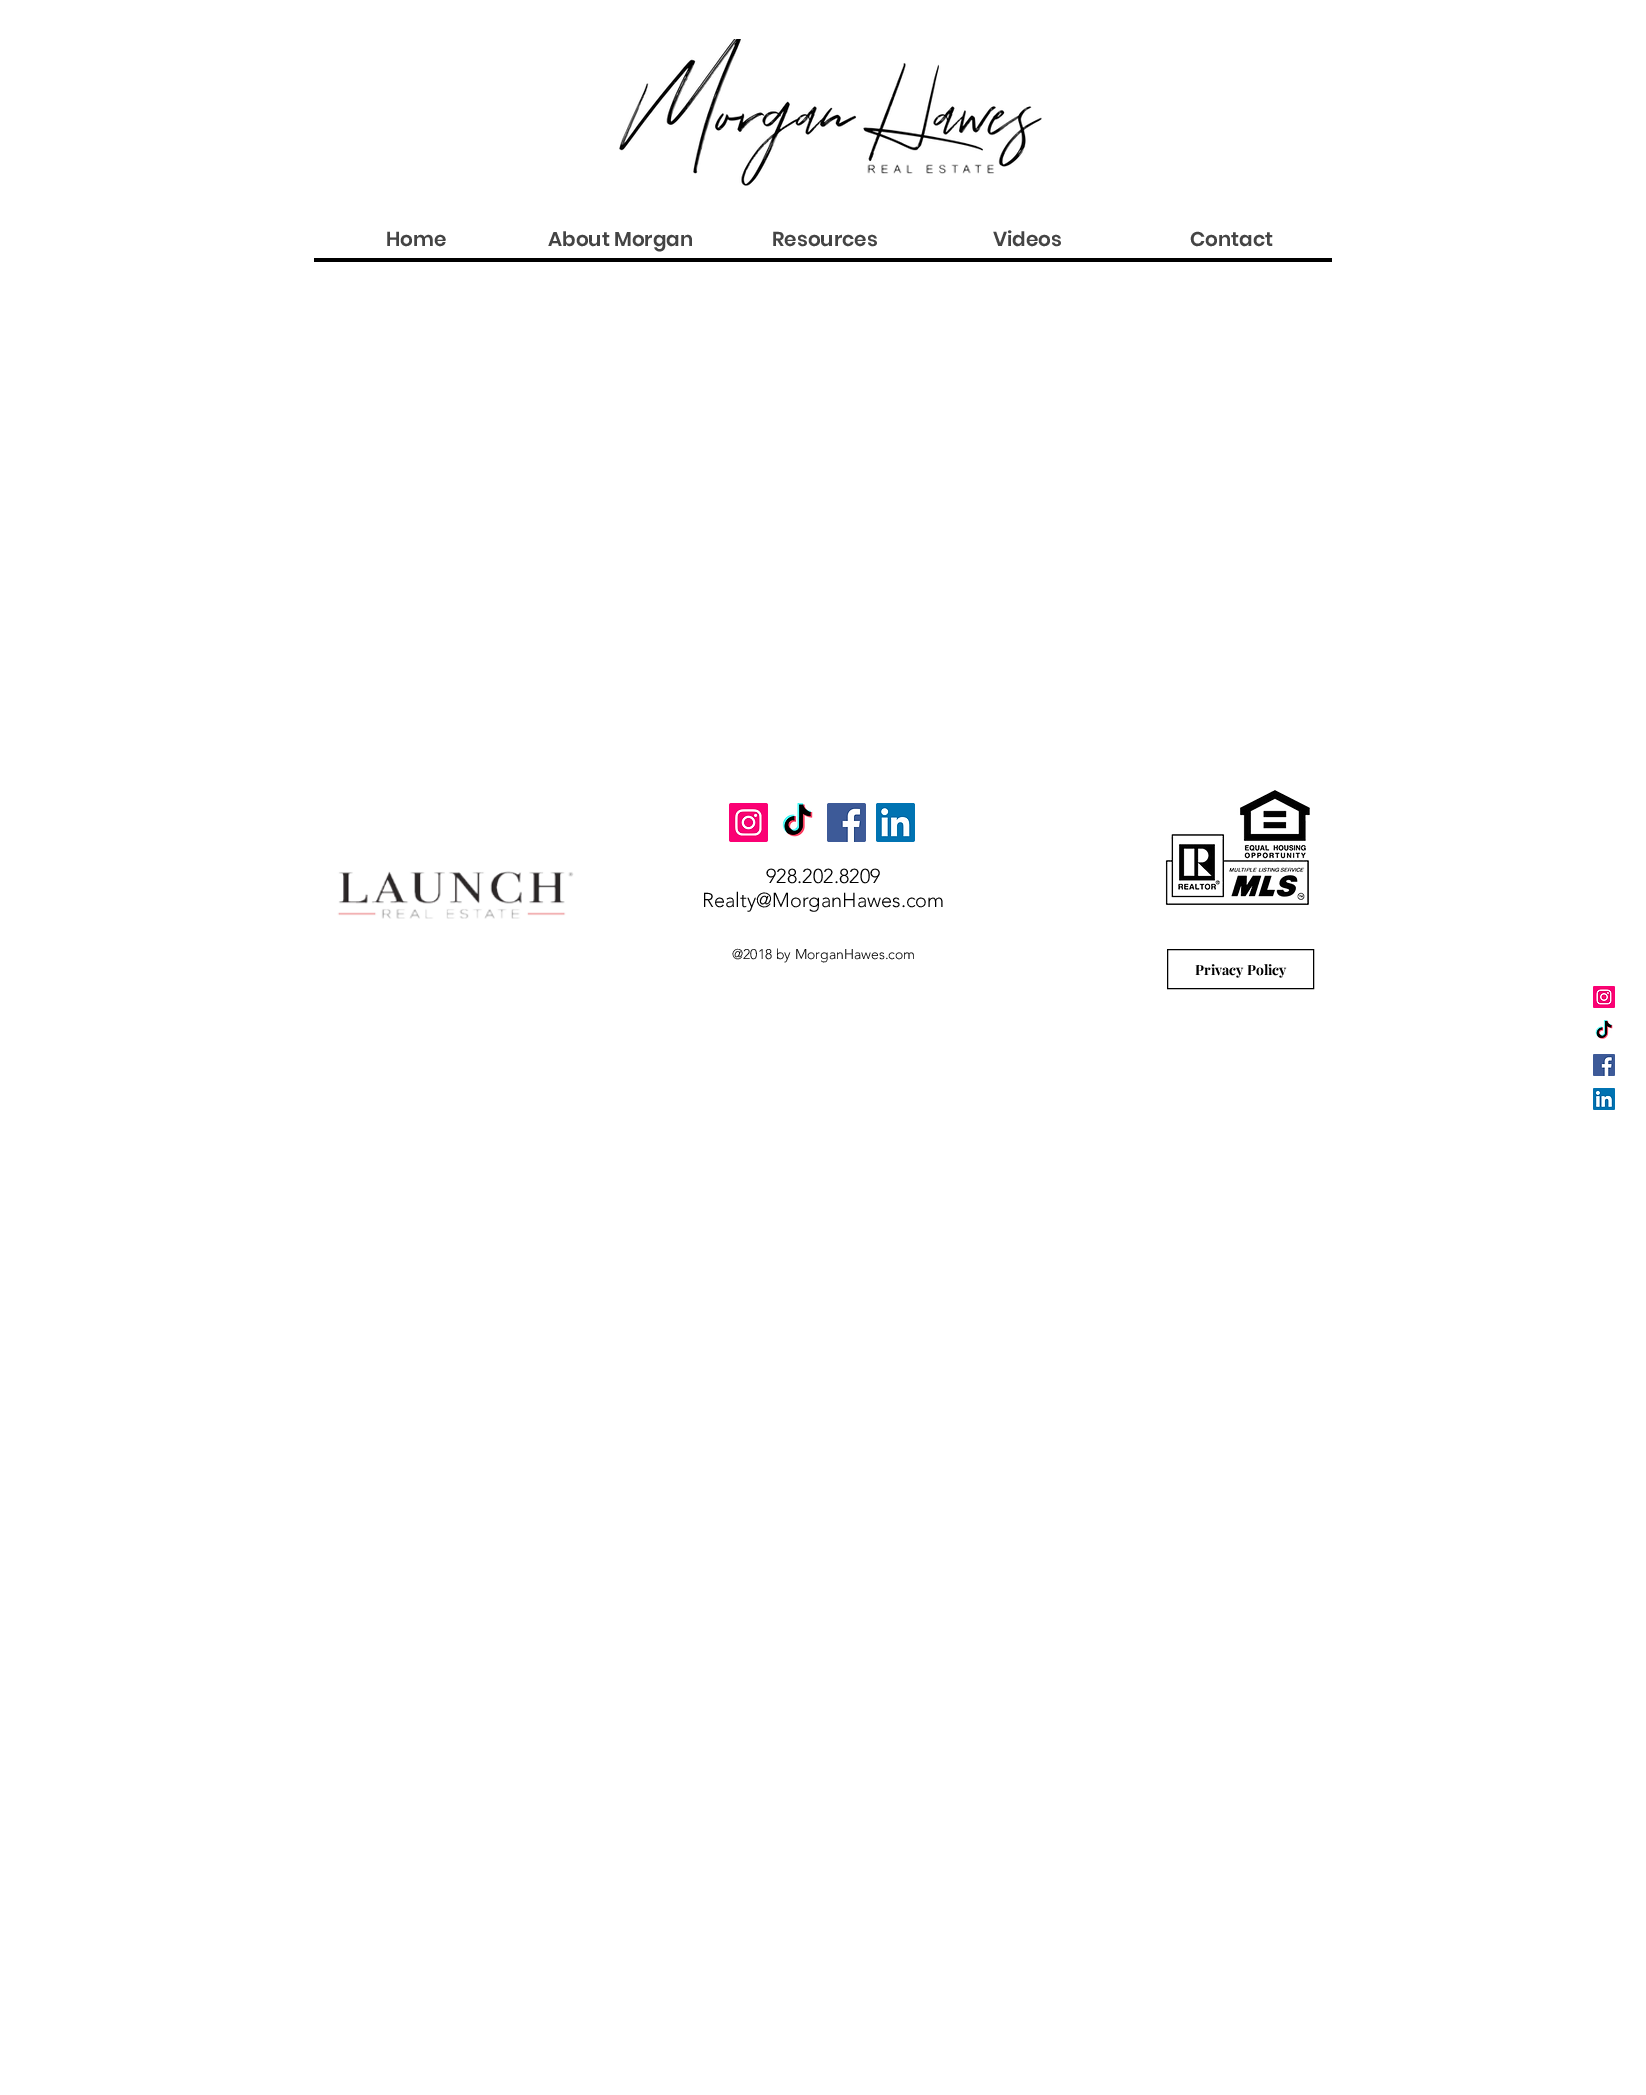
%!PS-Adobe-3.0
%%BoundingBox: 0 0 1646 2095
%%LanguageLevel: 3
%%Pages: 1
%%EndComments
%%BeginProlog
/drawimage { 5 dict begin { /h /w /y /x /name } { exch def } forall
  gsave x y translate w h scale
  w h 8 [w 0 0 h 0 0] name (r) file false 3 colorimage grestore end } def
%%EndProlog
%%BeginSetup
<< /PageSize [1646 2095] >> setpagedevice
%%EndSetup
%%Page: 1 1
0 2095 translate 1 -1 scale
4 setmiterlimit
1 setgray
0 0 1646 2095 rectfill
(images/1.raw) 619 39 423 147 drawimage
(images/2.raw) 867 159 128 15 drawimage
0 setgray
314 258 1018 4 rectfill
(images/3.raw) 729 803 39 39 drawimage
(images/4.raw) 782 803 31 34 drawimage
(images/5.raw) 827 803 39 39 drawimage
(images/6.raw) 876 803 39 39 drawimage
(images/7.raw) 1165 790 145 115 drawimage
(images/8.raw) 337 871 237 48 drawimage
1167.5 949.5 146 39 rectstroke
(images/9.raw) 1593 986 22 22 drawimage
(images/10.raw) 1595 1020 18 19 drawimage
(images/11.raw) 1593 1054 22 22 drawimage
(images/12.raw) 1593 1088 22 22 drawimage
/Poppins-SemiBold [20 0 0 -20 0 0] selectfont
0.267 setgray
386 246 moveto (Home) show
548 246 moveto (About Morgan) show
772 246 moveto (Resources) show
993 246 moveto (Videos) show
1190 246 moveto (Contact) show
/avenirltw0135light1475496-Light [20 0 0 -20 0 0] selectfont
0 setgray
766 883 moveto (928.202.8209) show
702 907 moveto (Realty@MorganHawes.com) show
/avenirltw0135light1475496-Light [14 0 0 -14 0 0] selectfont
732 959 moveto (@2018 by MorganHawes.com) show
/PlayfairDisplay-Bold [14 0 0 -14 0 0] selectfont
1195 975 moveto (Privacy Policy) show
showpage
%%EOF
